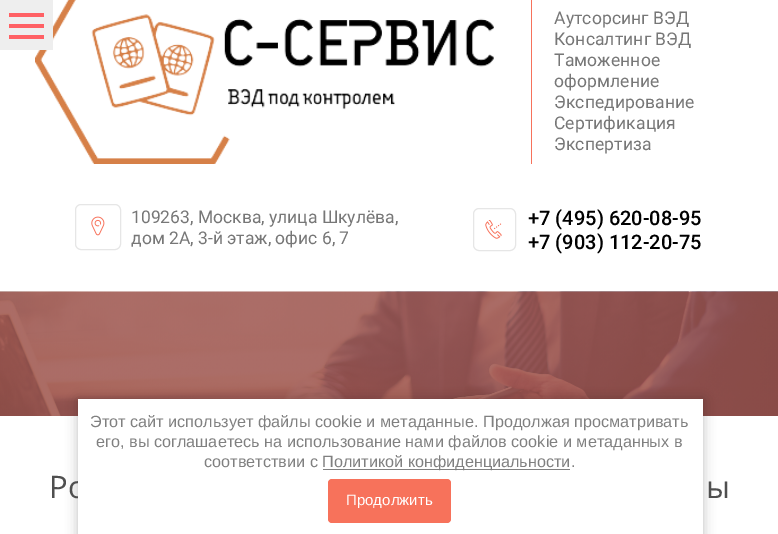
%!PS-Adobe-3.0
%%BoundingBox: 0 0 778 534
%%LanguageLevel: 3
%%Pages: 1
%%EndComments
%%BeginProlog
/setalpha { dup .setfillconstantalpha .setstrokeconstantalpha } def
/rrect { 5 dict begin { /r /h /w /y /x } { exch def } forall
  x r add y moveto x w add y 2 copy h add r arct x w add y h add x 1 index r arct
  x y h add x y r arct x y 2 copy exch w add exch r arct closepath end } def
/softshadow { 12 dict begin { /a /b /q /h /w /y /x } { exch def } forall gsave /was 0 def
  9 -2 -9 { dup b mul 4 div /e exch def 1 sub .425 mul 2.718 exch exp 1 add a .99 .min exch div /now exch def
    1 1 now sub 1 was sub div sub setalpha /was now def
    w h .min e 2 mul add 0 gt { x e sub y e sub w e 2 mul add h e 2 mul add
      q e add b .6 mul add w h .min 2 div e add .min 0 .max rrect fill } if } for grestore end } def
/drawimage { 5 dict begin { /h /w /y /x /name } { exch def } forall
  gsave x y translate w h scale
  w h 8 [w 0 0 h 0 0] name (r) file false 3 colorimage grestore end } def
%%EndProlog
%%BeginSetup
<< /PageSize [778 534] /PageUsesTransparency true >> setpagedevice
%%EndSetup
%%Page: 1 1
0 .pushpdf14devicefilter
0 534 translate 1 -1 scale
4 setmiterlimit
1 setgray
0 0 778 534 rectfill
(images/1.raw) 35 0 459 164 drawimage
0.933 setgray
0 0 53 50 rectfill
1 0.376 0.392 setrgbcolor
9 13 35 4 rectfill
9 24 35 4 rectfill
9 35 35 4 rectfill
0.969 0.447 0.357 setrgbcolor
531 0 1 164 rectfill
(images/2.raw) 91 216 14 20 drawimage
0.902 setgray
75.5 204.5 45 45 5.5 rrect stroke
(images/3.raw) 485 220 17 19 drawimage
473.5 208.5 42 42 5.5 rrect stroke
(images/4.raw) 0 291 778 125 drawimage
0 setgray
78 400 625 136 0 6 0.25 softshadow
/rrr-Regular [17.5 0 0 -17.5 0 0] selectfont
0.467 setgray
554 24 moveto 0.1 0 (Аутсорсинг ВЭД) ashow
554 45 moveto 0.1 0 (Консалтинг ВЭД) ashow
554 66 moveto 0.1 0 (Таможенное) ashow
554 87 moveto 0.1 0 (оформление) ashow
554 108 moveto 0.1 0 (Экспедирование) ashow
554 129 moveto 0.1 0 (Сертификация) ashow
554 150 moveto 0.1 0 (Экспертиза) ashow
131 223 moveto (109263, Москва, улица Шкулёва,) show
131 244 moveto (дом 2А, 3-й этаж, офис 6, 7) show
/Roboto-Medium [20 0 0 -20 0 0] selectfont
0 setgray
528 225 moveto (+7 \(495\) 620-08-95) show
528 249 moveto (+7 \(903\) 112-20-75) show
/OpenSans-Regular [31 0 0 -31 0 0] selectfont
0.31 setgray
49 498 moveto (Ро) show
706 498 moveto (ы) show
1 setgray
78 399 625 135 rectfill
/LiberationSans-Regular [16.25 0 0 -16.25 0 0] selectfont
0.502 setgray
90 427 moveto (Этот сайт использует файлы cookie и метаданные. Продолжая просматривать) show
96 447 moveto (его, вы соглашаетесь на использование нами файлов cookie и метаданных в) show
204 467 moveto (соответствии с) show
323 469 247 1 rectfill
322 467 moveto (Политикой конфиденциальности.) show
0.969 0.447 0.357 setrgbcolor
328 479 123 44 4 rrect fill
/LiberationSans-Regular [15 0 0 -15 0 0] selectfont
1 setgray
346 505 moveto (Продолжить) show
.poppdf14devicefilter showpage
%%EOF
